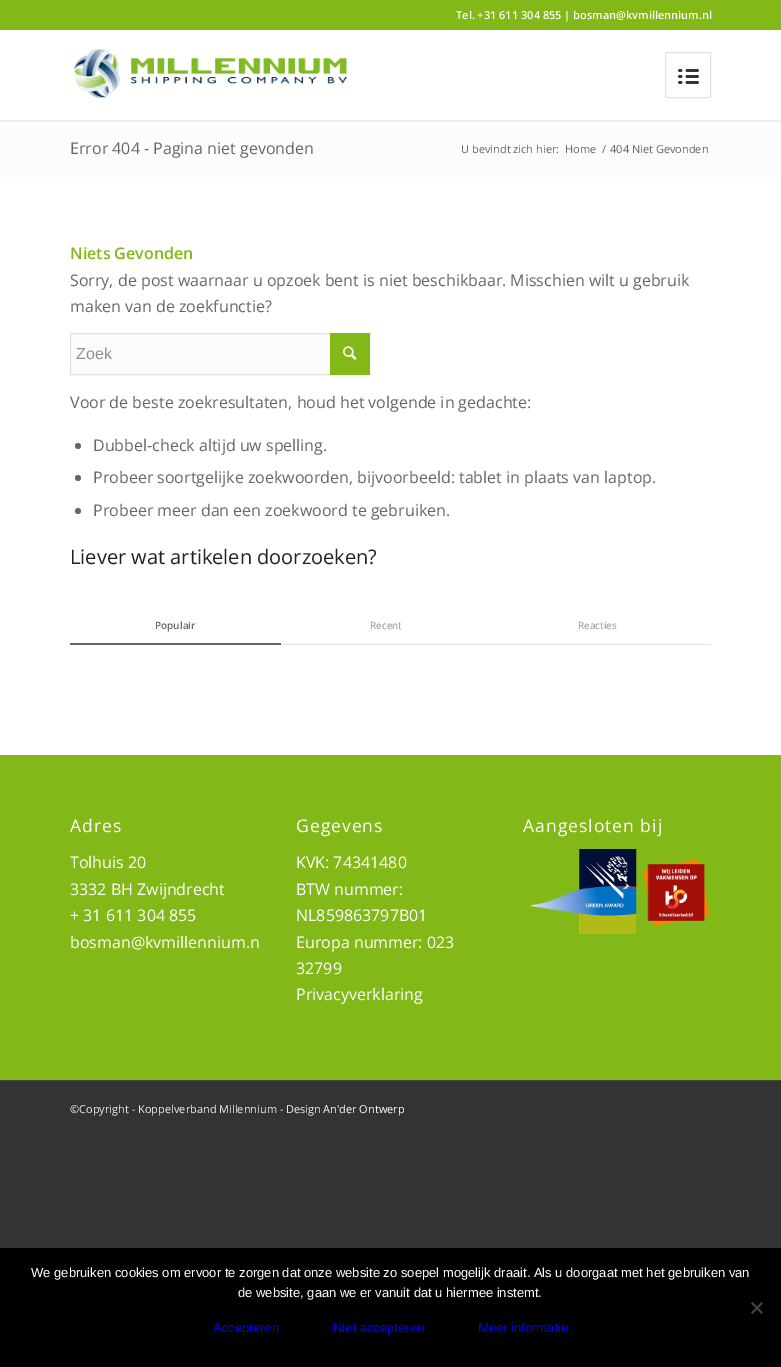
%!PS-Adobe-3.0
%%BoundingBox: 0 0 781 1367
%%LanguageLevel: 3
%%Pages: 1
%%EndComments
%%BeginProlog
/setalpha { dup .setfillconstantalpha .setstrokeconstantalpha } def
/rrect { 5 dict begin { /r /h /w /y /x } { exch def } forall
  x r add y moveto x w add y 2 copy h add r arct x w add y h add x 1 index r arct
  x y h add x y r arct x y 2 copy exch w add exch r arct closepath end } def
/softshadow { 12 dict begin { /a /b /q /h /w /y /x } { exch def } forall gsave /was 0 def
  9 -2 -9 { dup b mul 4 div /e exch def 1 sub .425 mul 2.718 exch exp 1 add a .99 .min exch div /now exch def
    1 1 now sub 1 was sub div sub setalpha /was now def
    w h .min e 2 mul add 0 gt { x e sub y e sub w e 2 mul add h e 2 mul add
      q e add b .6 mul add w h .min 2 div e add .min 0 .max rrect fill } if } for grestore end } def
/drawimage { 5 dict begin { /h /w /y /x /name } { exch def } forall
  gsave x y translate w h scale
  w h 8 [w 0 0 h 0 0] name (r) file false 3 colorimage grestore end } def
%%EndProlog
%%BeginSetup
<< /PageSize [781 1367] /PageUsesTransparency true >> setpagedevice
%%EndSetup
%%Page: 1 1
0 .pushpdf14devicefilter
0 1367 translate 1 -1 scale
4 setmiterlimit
0.2 setgray
0 0 781 1367 rectfill
0.988 setgray
0 120 781 57 rectfill
0 setgray
-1 -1 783 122 0 1 0.1 softshadow
0.51 0.722 0.09 setrgbcolor
0 0 781 30 rectfill
1 setgray
0 30 781 90 rectfill
(images/1.raw) 74 49 273 49 drawimage
0.882 setgray
665.5 52.5 45 45 1.5 rrect stroke
(images/2.raw) 678 69 21 15 drawimage
1 setgray
0 177 781 578 rectfill
0.988 setgray
71 334 259 40 rectfill
0.882 setgray
70.5 333.5 299 41 rectstroke
0.51 0.722 0.09 setrgbcolor
330 333 40 42 rectfill
(images/3.raw) 343 346 14 14 drawimage
0.4 setgray
newpath 78 446 3 0 360 arc closepath fill
newpath 78 478 3 0 360 arc closepath fill
newpath 78 511 3 0 360 arc closepath fill
0.882 setgray
281 644 430 1 rectfill
0.4 setgray
70 643 211 2 rectfill
0.51 0.722 0.09 setrgbcolor
0 755 781 325 rectfill
(images/4.raw) 531 849 179 85 drawimage
0.267 setgray
0 1080 781 1 rectfill
0 setgray
0 1248 781 119 rectfill
0.251 setgray
newpath 761.5 1302 moveto 763 1303.5 lineto 752.5 1314 lineto 751 1312.5 lineto closepath fill
newpath 751 1303.5 moveto 752.5 1302 lineto 763 1312.5 lineto 761.5 1314 lineto closepath fill
/OpenSans-SemiBold [11 0 0 -11 0 0] selectfont
1 setgray
456 19 moveto (Tel. +31 611 304 855 | bosman@kvmillennium.nl) show
/OpenSans-Regular [16 0 0 -16 0 0] selectfont
0.4 setgray
70 154 moveto (Error 404 - Pagina niet gevonden) show
/OpenSans-Regular [11 0 0 -11 0 0] selectfont
461 153 moveto (U bevindt zich hier:) show
565 153 moveto (Home) show
602 153 moveto (/) show
610 153 moveto (404 Niet Gevonden) show
/OpenSans-SemiBold [16 0 0 -16 0 0] selectfont
0.51 0.722 0.09 setrgbcolor
70 259 moveto (Niets Gevonden) show
/OpenSans-Regular [16 0 0 -16 0 0] selectfont
0.4 setgray
70 286 moveto (Sorry, de post waarnaar u opzoek bent is niet beschikbaar. Misschien wilt u gebruik) show
70 312 moveto (maken van de zoekfunctie?) show
/LiberationSans-Regular [16 0 0 -16 0 0] selectfont
0.569 setgray
76 359 moveto (Zoek) show
/OpenSans-Regular [16 0 0 -16 0 0] selectfont
0.4 setgray
70 408 moveto (Voor de beste zoekresultaten, houd het volgende in gedachte:) show
93 451 moveto (Dubbel-check altijd uw spelling.) show
93 483 moveto (Probeer soortgelijke zoekwoorden, bijvoorbeeld: tablet in plaats van laptop.) show
93 516 moveto (Probeer meer dan een zoekwoord te gebruiken.) show
/OpenSans-Regular [20 0 0 -20 0 0] selectfont
0.133 setgray
70 564 moveto (Liever wat artikelen doorzoeken?) show
/OpenSans-SemiBold [10 0 0 -10 0 0] selectfont
0.4 setgray
155 629 moveto (Populair) show
/OpenSans-Regular [10 0 0 -10 0 0] selectfont
0.569 setgray
370 629 moveto (Recent) show
578 629 moveto (Reacties) show
/OpenSans-Regular [17.5 0 0 -17.5 0 0] selectfont
1 setgray
70 832 moveto 1 0 (Adres) ashow
/OpenSans-Regular [16 0 0 -16 0 0] selectfont
70 868 moveto (Tolhuis 20) show
70 895 moveto (3332 BH Zwijndrecht) show
70 921 moveto (+ 31 611 304 855) show
70 948 moveto (bosman@kvmillennium.n) show
/OpenSans-Regular [17.5 0 0 -17.5 0 0] selectfont
296 832 moveto 1 0 (Gegevens) ashow
/OpenSans-Regular [16 0 0 -16 0 0] selectfont
296 868 moveto (KVK: 74341480) show
296 895 moveto (BTW nummer:) show
296 921 moveto (NL859863797B01) show
296 948 moveto (Europa nummer: 023) show
296 974 moveto (32799) show
296 1000 moveto (Privacyverklaring) show
/OpenSans-Regular [17.5 0 0 -17.5 0 0] selectfont
523 832 moveto 1 0 (Aangesloten bij) ashow
/OpenSans-Regular [11 0 0 -11 0 0] selectfont
0.933 setgray
70 1113 moveto (©Copyright - Koppelverband Millennium - Design) show
1 setgray
323 1113 moveto (An'der Ontwerp) show
/LiberationSans-Regular [13 0 0 -13 0 0] selectfont
31 1277 moveto (We gebruiken cookies om ervoor te zorgen dat onze website zo soepel mogelijk draait. Als u doorgaat met het gebruiken van) show
238 1297 moveto (de website, gaan we er vanuit dat u hiermee instemt.) show
0 0 0.933 setrgbcolor
213 1332 moveto (Accepteren) show
333 1332 moveto (Niet accepteren) show
478 1332 moveto (Meer informatie) show
.poppdf14devicefilter showpage
%%EOF
